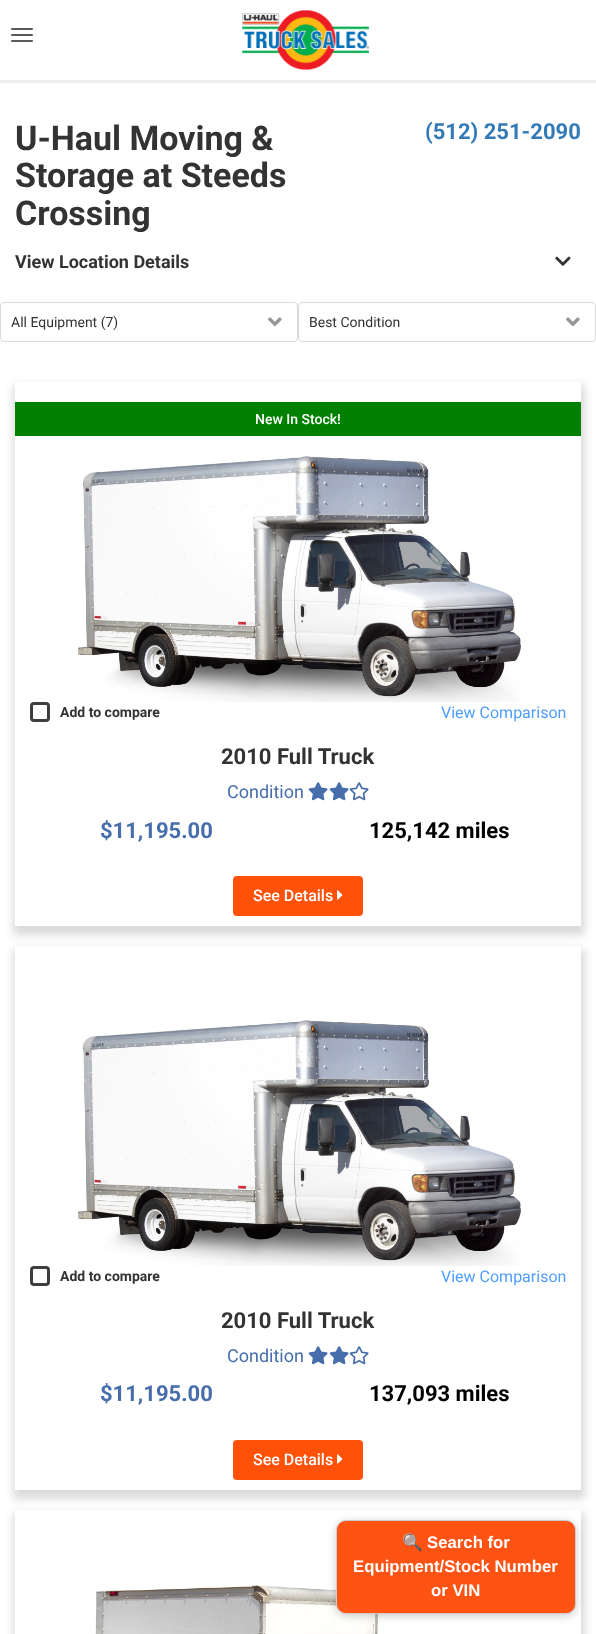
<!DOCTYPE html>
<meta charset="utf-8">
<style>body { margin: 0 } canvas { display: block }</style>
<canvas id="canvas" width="596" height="1634"></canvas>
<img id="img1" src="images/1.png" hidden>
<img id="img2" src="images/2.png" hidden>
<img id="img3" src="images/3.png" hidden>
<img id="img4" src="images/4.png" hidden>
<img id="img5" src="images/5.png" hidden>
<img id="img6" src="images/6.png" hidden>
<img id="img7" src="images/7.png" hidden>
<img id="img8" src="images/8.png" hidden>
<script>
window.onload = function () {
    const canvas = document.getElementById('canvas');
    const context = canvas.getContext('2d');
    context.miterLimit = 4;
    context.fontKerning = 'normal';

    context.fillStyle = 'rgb(255, 255, 255)';
    context.fillRect(0, 0, 596, 1634);
    context.fillStyle = 'rgb(90, 90, 90)';
    context.beginPath();
    context.roundRect(11, 28, 22, 2, 1);
    context.fill();
    context.beginPath();
    context.roundRect(11, 34, 22, 2, 1);
    context.fill();
    context.beginPath();
    context.roundRect(11, 40, 22, 2, 1);
    context.fill();
    context.drawImage(document.getElementById('img1'), 242, 10, 127, 60);
    context.fillStyle = 'rgb(238, 238, 238)';
    context.fillRect(0, 80, 596, 3);
    context.drawImage(document.getElementById('img2'), 555, 256, 16, 10);
    context.beginPath();
    context.roundRect(0.5, 302.5, 297, 39, 3.5);
    context.strokeStyle = 'rgb(218, 218, 218)';
    context.stroke();
    context.drawImage(document.getElementById('img3'), 268, 317, 14, 10);
    context.beginPath();
    context.roundRect(298.5, 302.5, 297, 39, 3.5);
    context.stroke();
    context.drawImage(document.getElementById('img3'), 566, 317, 14, 10);
    context.save();
    context.beginPath();
    context.moveTo(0, 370);
    context.lineTo(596, 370);
    context.lineTo(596, 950);
    context.lineTo(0, 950);
    context.closePath();
    context.moveTo(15, 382);
    context.lineTo(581, 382);
    context.lineTo(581, 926);
    context.lineTo(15, 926);
    context.closePath();
    context.clip('evenodd');
    context.fillStyle = 'rgb(218, 218, 218)';
    context.filter = 'blur(4.5px)';
    context.beginPath();
    context.rect(13, 385, 572, 550);
    context.fill();
    context.filter = 'none';
    context.restore();
    context.fillStyle = 'rgb(0, 128, 0)';
    context.fillRect(15, 402, 566, 34);
    context.drawImage(document.getElementById('img4'), 78, 456, 443, 246);
    context.beginPath();
    context.roundRect(31.5, 703.5, 17, 17, 2.5);
    context.strokeStyle = 'rgb(62, 62, 62)';
    context.lineWidth = 3;
    context.stroke();
    context.drawImage(document.getElementById('img5'), 308, 782, 20, 19);
    context.drawImage(document.getElementById('img5'), 329, 782, 20, 19);
    context.drawImage(document.getElementById('img6'), 349, 782, 20, 19);
    context.fillStyle = 'rgb(255, 81, 7)';
    context.beginPath();
    context.roundRect(233, 876, 130, 40, 4);
    context.fill();
    context.drawImage(document.getElementById('img7'), 337, 890, 6, 10);
    context.save();
    context.beginPath();
    context.moveTo(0, 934);
    context.lineTo(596, 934);
    context.lineTo(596, 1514);
    context.lineTo(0, 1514);
    context.closePath();
    context.moveTo(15, 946);
    context.lineTo(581, 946);
    context.lineTo(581, 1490);
    context.lineTo(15, 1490);
    context.closePath();
    context.clip('evenodd');
    context.fillStyle = 'rgb(218, 218, 218)';
    context.filter = 'blur(4.5px)';
    context.beginPath();
    context.rect(13, 949, 572, 550);
    context.fill();
    context.filter = 'none';
    context.restore();
    context.drawImage(document.getElementById('img4'), 78, 1020, 443, 246);
    context.beginPath();
    context.roundRect(31.5, 1267.5, 17, 17, 2.5);
    context.stroke();
    context.drawImage(document.getElementById('img5'), 308, 1346, 20, 19);
    context.drawImage(document.getElementById('img5'), 329, 1346, 20, 19);
    context.drawImage(document.getElementById('img6'), 349, 1346, 20, 19);
    context.beginPath();
    context.roundRect(233, 1440, 130, 40, 4);
    context.fill();
    context.drawImage(document.getElementById('img7'), 337, 1454, 6, 10);
    context.save();
    context.beginPath();
    context.moveTo(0, 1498);
    context.lineTo(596, 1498);
    context.lineTo(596, 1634);
    context.lineTo(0, 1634);
    context.closePath();
    context.moveTo(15, 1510);
    context.lineTo(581, 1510);
    context.lineTo(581, 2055);
    context.lineTo(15, 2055);
    context.closePath();
    context.clip('evenodd');
    context.fillStyle = 'rgb(218, 218, 218)';
    context.filter = 'blur(4.5px)';
    context.beginPath();
    context.rect(13, 1513, 572, 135);
    context.fill();
    context.filter = 'none';
    context.restore();
    context.drawImage(document.getElementById('img8'), 95, 1585, 284, 49);
    context.fillStyle = 'rgba(0, 0, 0, 0.2)';
    context.filter = 'blur(4px)';
    context.beginPath();
    context.roundRect(336, 1522, 240, 94, 10);
    context.fill();
    context.filter = 'none';
    context.fillStyle = 'rgb(255, 83, 20)';
    context.beginPath();
    context.roundRect(336.5, 1520.5, 239, 93, 9.5);
    context.fill();
    context.strokeStyle = 'rgb(204, 204, 204)';
    context.lineWidth = 1;
    context.stroke();
    context.font = 'bold 34px Roboto';
    context.fillStyle = 'rgb(51, 51, 51)';
    context.fillText('U-Haul Moving &', 15, 150);
    context.fillText('Storage at Steeds', 15, 187);
    context.fillText('Crossing', 15, 225);
    context.font = 'bold 22px Roboto';
    context.fillStyle = 'rgb(51, 122, 183)';
    context.fillText('(512) 251-2090', 425, 139);
    context.font = 'bold 18px Roboto';
    context.fillStyle = 'rgb(51, 51, 51)';
    context.fillText('View Location Details', 15, 268);
    context.font = '14px Roboto';
    context.fillText('All Equipment (7)', 11, 327);
    context.fillText('Best Condition', 309, 327);
    context.font = '500 14px Roboto';
    context.fillStyle = 'rgb(255, 255, 255)';
    context.fillText('New In Stock!', 255, 424);
    context.font = 'bold 14px Roboto';
    context.fillStyle = 'rgb(51, 51, 51)';
    context.fillText('Add to compare', 60, 717);
    context.font = '16px Roboto';
    context.fillStyle = 'rgb(78, 157, 254)';
    context.fillText('View Comparison', 441, 718);
    context.font = 'bold 22px Roboto';
    context.fillStyle = 'rgb(51, 51, 51)';
    context.fillText('2010 Full Truck', 221, 764);
    context.font = '18px Roboto';
    context.fillStyle = 'rgb(71, 110, 170)';
    context.fillText('Condition', 227, 798);
    context.font = 'bold 22px Roboto';
    context.fillText('$11,195.00', 100, 838);
    context.fillStyle = 'rgb(0, 0, 0)';
    context.fillText('125,142 miles', 369, 838);
    context.font = '500 16px Roboto';
    context.fillStyle = 'rgb(255, 255, 255)';
    context.fillText('See Details', 253, 901);
    context.font = 'bold 14px Roboto';
    context.fillStyle = 'rgb(51, 51, 51)';
    context.fillText('Add to compare', 60, 1281);
    context.font = '16px Roboto';
    context.fillStyle = 'rgb(78, 157, 254)';
    context.fillText('View Comparison', 441, 1282);
    context.font = 'bold 22px Roboto';
    context.fillStyle = 'rgb(51, 51, 51)';
    context.fillText('2010 Full Truck', 221, 1328);
    context.font = '18px Roboto';
    context.fillStyle = 'rgb(71, 110, 170)';
    context.fillText('Condition', 227, 1362);
    context.font = 'bold 22px Roboto';
    context.fillText('$11,195.00', 100, 1401);
    context.fillStyle = 'rgb(0, 0, 0)';
    context.fillText('137,093 miles', 369, 1401);
    context.font = '500 16px Roboto';
    context.fillStyle = 'rgb(255, 255, 255)';
    context.fillText('See Details', 253, 1465);
    context.font = 'bold 16.75px Noto Color Emoji';
    context.fillText('🔍', 402, 1548);
    context.font = 'bold 16.75px Liberation Sans';
    context.fillText('Search for', 427, 1548);
    context.fillText('Equipment/Stock Number', 353, 1572);
    context.fillText('or VIN', 431, 1596);
};
</script>
